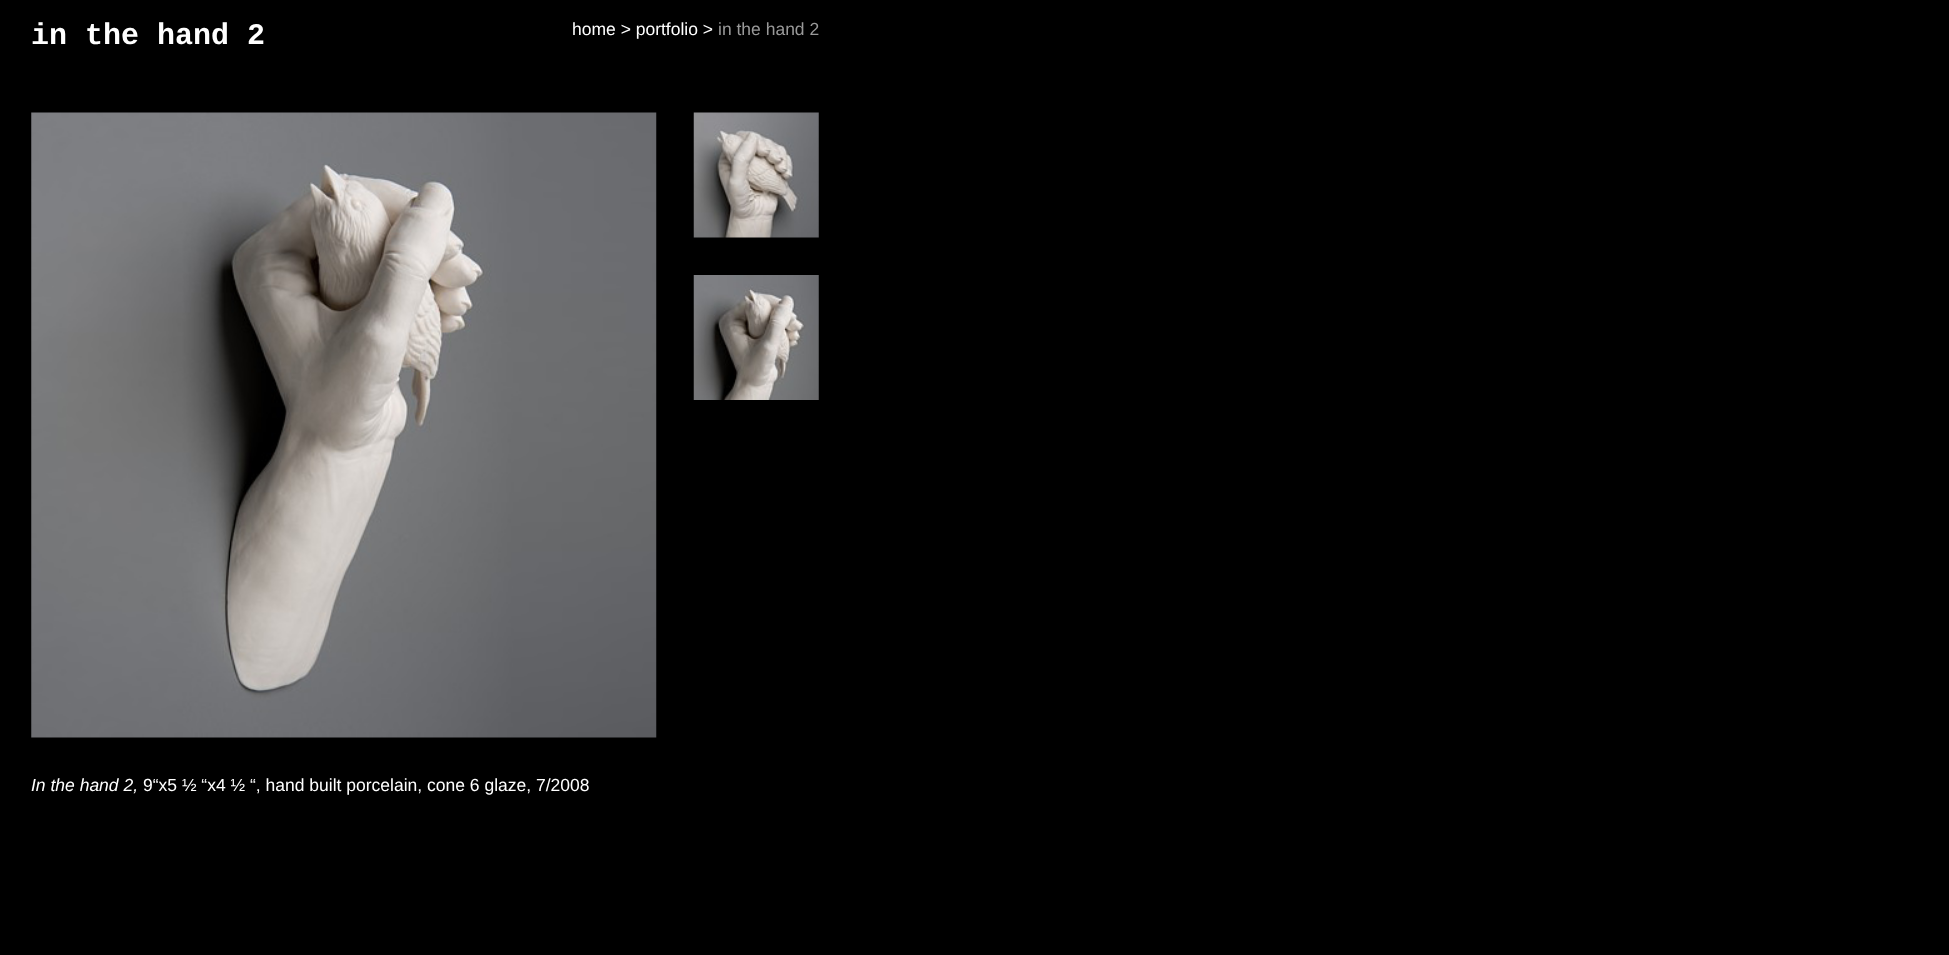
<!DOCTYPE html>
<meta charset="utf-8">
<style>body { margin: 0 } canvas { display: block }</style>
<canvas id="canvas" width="1949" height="955"></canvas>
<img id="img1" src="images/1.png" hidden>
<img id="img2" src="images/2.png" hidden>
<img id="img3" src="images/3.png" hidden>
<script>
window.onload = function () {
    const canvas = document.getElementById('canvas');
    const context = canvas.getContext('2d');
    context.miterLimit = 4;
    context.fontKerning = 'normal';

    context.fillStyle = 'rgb(0, 0, 0)';
    context.fillRect(0, 0, 1949, 955);
    context.drawImage(document.getElementById('img1'), 31, 112, 626, 626);
    context.drawImage(document.getElementById('img2'), 693, 112, 126, 126);
    context.drawImage(document.getElementById('img3'), 693, 275, 126, 125);
    context.font = 'bold 30px Liberation Mono';
    context.fillStyle = 'rgb(255, 255, 255)';
    context.fillText('in the hand 2', 31, 44);
    context.font = '17.5px Liberation Sans';
    context.fillText('home > portfolio >', 572, 35);
    context.fillStyle = 'rgb(153, 153, 153)';
    context.fillText('in the hand 2', 718, 35);
    context.font = 'italic 17.5px Liberation Sans';
    context.fillStyle = 'rgb(255, 255, 255)';
    context.fillText('In the hand 2,', 31, 791);
    context.font = '17.5px Liberation Sans';
    context.fillText('9“x5 ½ “x4 ½ “, hand built porcelain, cone 6 glaze, 7/2008', 143, 791);
};
</script>
